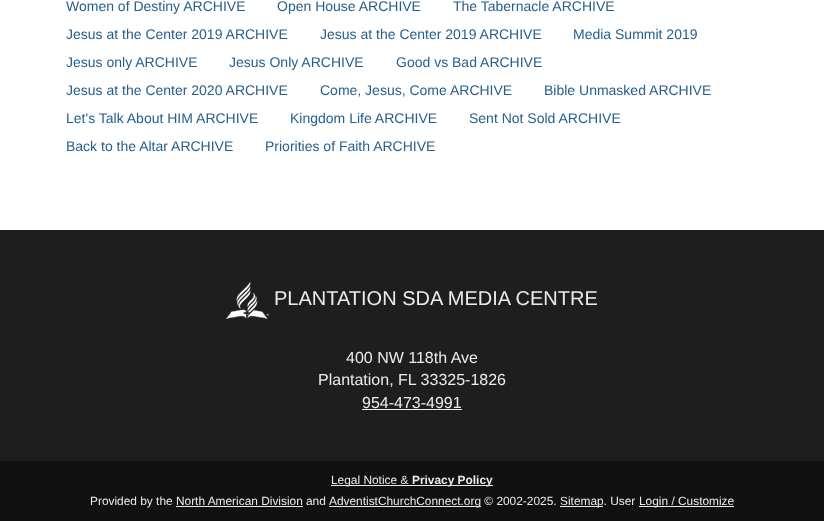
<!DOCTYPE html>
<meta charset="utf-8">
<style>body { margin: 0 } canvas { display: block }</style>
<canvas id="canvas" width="824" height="521"></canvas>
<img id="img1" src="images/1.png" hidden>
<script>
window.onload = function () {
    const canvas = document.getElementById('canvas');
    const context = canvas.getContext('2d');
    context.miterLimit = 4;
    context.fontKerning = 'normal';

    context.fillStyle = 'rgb(255, 255, 255)';
    context.fillRect(0, 0, 824, 521);
    context.fillStyle = 'rgb(30, 30, 30)';
    context.fillRect(0, 230, 824, 231);
    context.drawImage(document.getElementById('img1'), 226, 282, 43, 37);
    context.fillStyle = 'rgb(235, 235, 235)';
    context.fillRect(362, 409, 100, 1);
    context.fillStyle = 'rgb(17, 17, 17)';
    context.fillRect(0, 461, 824, 60);
    context.fillStyle = 'rgb(235, 235, 235)';
    context.fillRect(331, 485, 162, 1);
    context.fillRect(176, 506, 127, 1);
    context.fillRect(329, 506, 152, 1);
    context.fillRect(560, 506, 43, 1);
    context.fillRect(639, 506, 95, 1);
    context.font = '14px Liberation Sans';
    context.fillStyle = 'rgb(39, 94, 139)';
    context.fillText('Women of Destiny ARCHIVE', 66, 11);
    context.fillText('Open House ARCHIVE', 277, 11);
    context.fillText('The Tabernacle ARCHIVE', 453, 11);
    context.fillText('Jesus at the Center 2019 ARCHIVE', 66, 39);
    context.fillText('Jesus at the Center 2019 ARCHIVE', 320, 39);
    context.fillText('Media Summit 2019', 573, 39);
    context.fillText('Jesus only ARCHIVE', 66, 67);
    context.fillText('Jesus Only ARCHIVE', 229, 67);
    context.fillText('Good vs Bad ARCHIVE', 396, 67);
    context.fillText('Jesus at the Center 2020 ARCHIVE', 66, 95);
    context.fillText('Come, Jesus, Come ARCHIVE', 320, 95);
    context.fillText('Bible Unmasked ARCHIVE', 544, 95);
    context.fillText('Let\'s Talk About HIM ARCHIVE', 66, 123);
    context.fillText('Kingdom Life ARCHIVE', 290, 123);
    context.fillText('Sent Not Sold ARCHIVE', 469, 123);
    context.fillText('Back to the Altar ARCHIVE', 66, 151);
    context.fillText('Priorities of Faith ARCHIVE', 265, 151);
    context.font = '20px Liberation Sans';
    context.fillStyle = 'rgb(235, 235, 235)';
    context.fillText('PLANTATION SDA MEDIA CENTRE', 274, 305);
    context.font = '16px Liberation Sans';
    context.fillText('400 NW 118th Ave', 346, 363);
    context.fillText('Plantation, FL 33325-1826', 318, 385);
    context.fillText('954-473-4991', 362, 408);
    context.font = '11.9px Liberation Sans';
    context.fillText('Legal Notice &', 331, 484);
    context.font = 'bold 11.9px Liberation Sans';
    context.fillText('Privacy Policy', 412, 484);
    context.font = '11.9px Liberation Sans';
    context.fillText('Provided by the North American Division', 90, 505);
    context.fillText('and', 306, 505);
    context.fillText('AdventistChurchConnect.org © 2002-2025.', 329, 505);
    context.fillText('Sitemap. User', 560, 505);
    context.fillText('Login / Customize', 639, 505);
};
</script>
